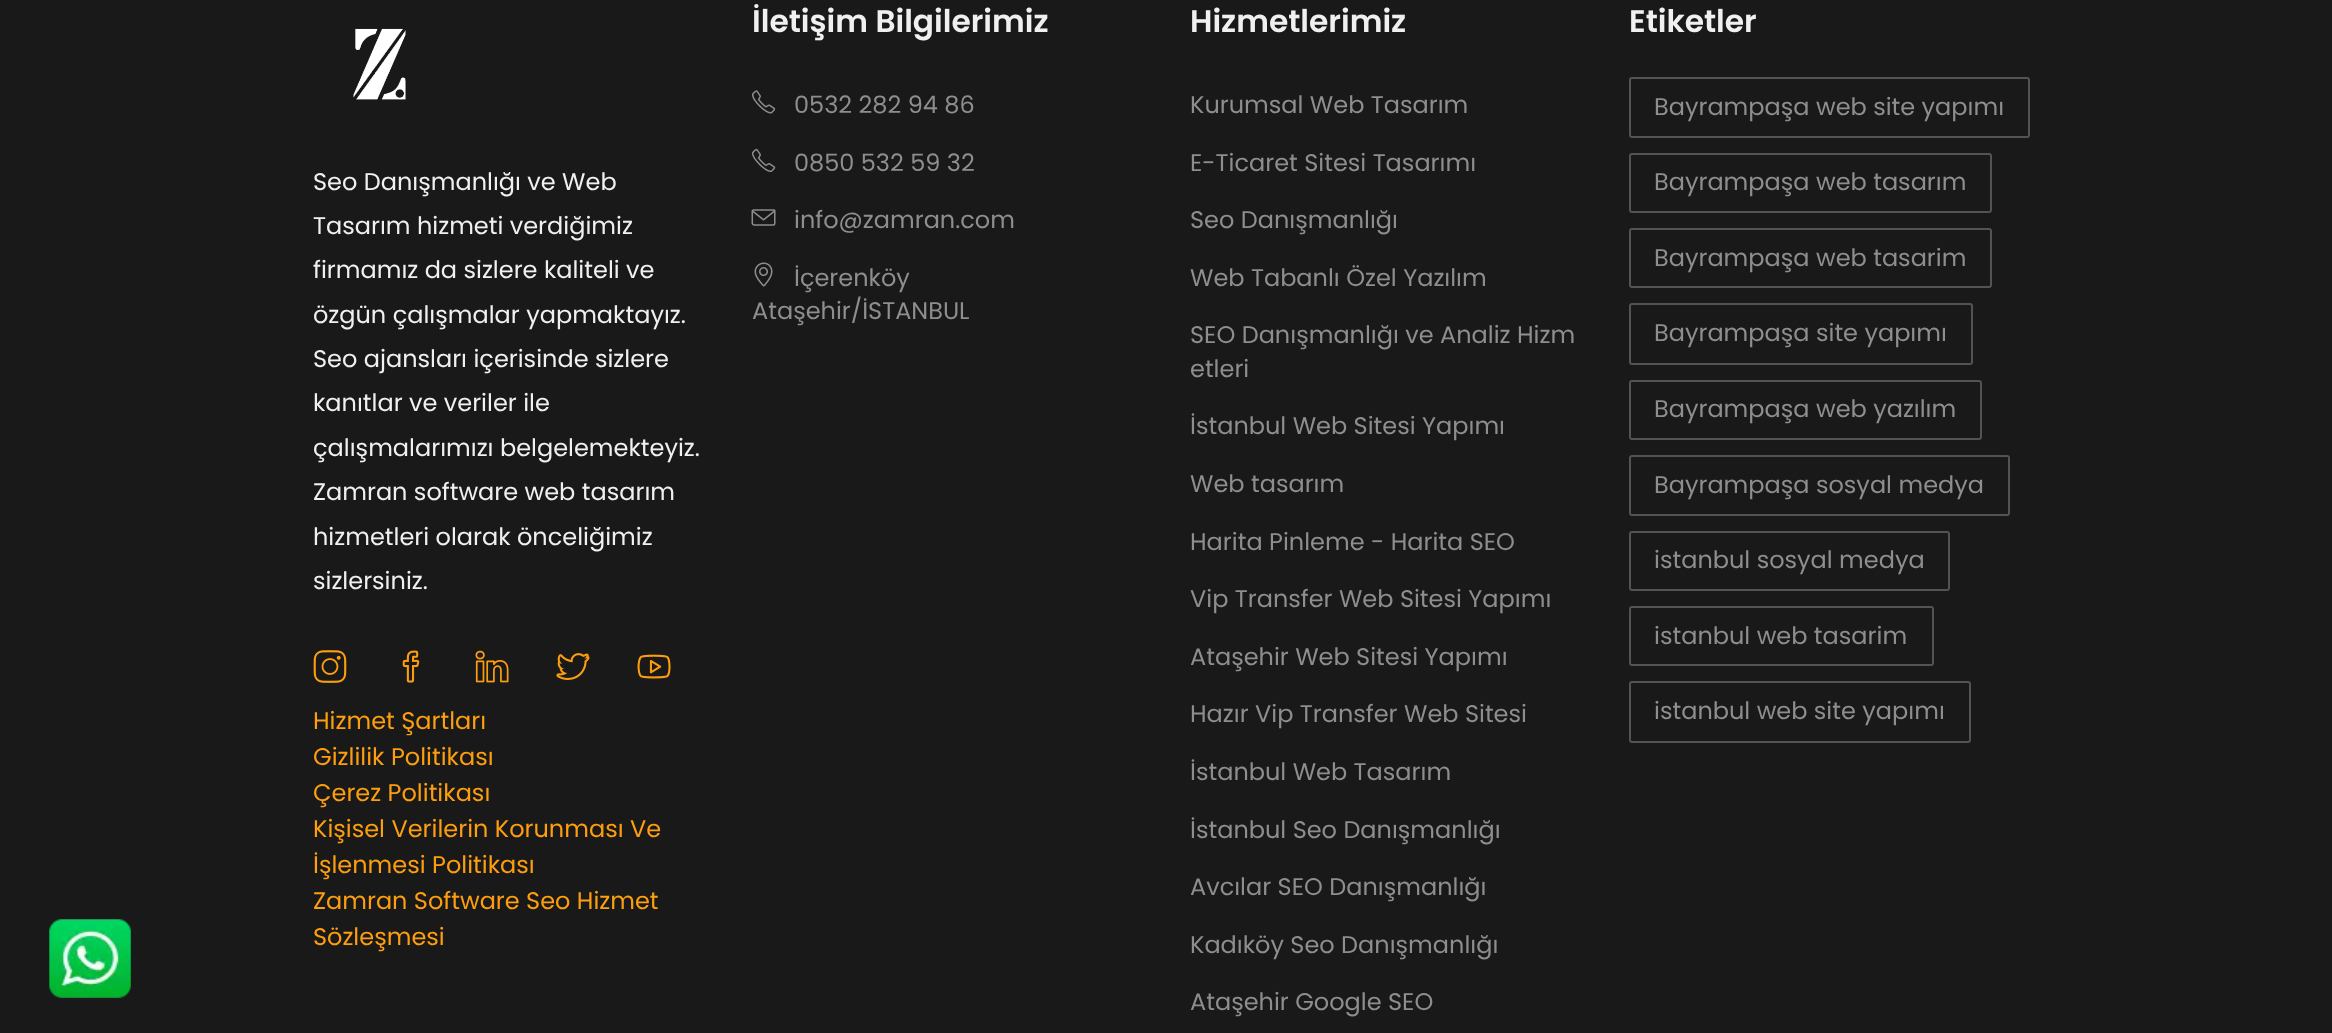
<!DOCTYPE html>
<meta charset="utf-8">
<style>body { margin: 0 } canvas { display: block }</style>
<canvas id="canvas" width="2332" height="1033"></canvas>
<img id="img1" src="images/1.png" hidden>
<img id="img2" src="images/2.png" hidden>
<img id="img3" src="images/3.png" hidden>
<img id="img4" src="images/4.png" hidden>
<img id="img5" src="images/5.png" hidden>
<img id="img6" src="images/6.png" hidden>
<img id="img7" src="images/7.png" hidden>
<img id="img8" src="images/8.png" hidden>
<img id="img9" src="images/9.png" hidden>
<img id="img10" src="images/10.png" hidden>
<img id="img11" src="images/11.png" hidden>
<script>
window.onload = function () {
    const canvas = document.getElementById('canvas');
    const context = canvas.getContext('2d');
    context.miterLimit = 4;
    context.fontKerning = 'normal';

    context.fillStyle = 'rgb(25, 25, 25)';
    context.fillRect(0, 0, 2332, 1033);
    context.drawImage(document.getElementById('img1'), 49, 919, 82, 80);
    context.drawImage(document.getElementById('img2'), 353, 28, 53, 72);
    context.drawImage(document.getElementById('img3'), 313, 650, 34, 33);
    context.drawImage(document.getElementById('img4'), 402, 650, 18, 33);
    context.drawImage(document.getElementById('img5'), 475, 650, 34, 33);
    context.drawImage(document.getElementById('img6'), 556, 653, 34, 27);
    context.drawImage(document.getElementById('img7'), 637, 654, 34, 25);
    context.drawImage(document.getElementById('img8'), 751, 90, 25, 24);
    context.drawImage(document.getElementById('img9'), 751, 148, 25, 24);
    context.drawImage(document.getElementById('img10'), 751, 209, 25, 17);
    context.drawImage(document.getElementById('img11'), 754, 262, 19, 25);
    context.beginPath();
    context.roundRect(1630, 78, 399, 59, 2);
    context.strokeStyle = 'rgb(83, 83, 83)';
    context.lineWidth = 2;
    context.stroke();
    context.beginPath();
    context.roundRect(1630, 154, 361, 58, 2);
    context.stroke();
    context.beginPath();
    context.roundRect(1630, 229, 361, 58, 2);
    context.stroke();
    context.beginPath();
    context.roundRect(1630, 304, 342, 60, 2);
    context.stroke();
    context.beginPath();
    context.roundRect(1630, 381, 351, 58, 2);
    context.stroke();
    context.beginPath();
    context.roundRect(1630, 456, 379, 59, 2);
    context.stroke();
    context.beginPath();
    context.roundRect(1630, 532, 319, 58, 2);
    context.stroke();
    context.beginPath();
    context.roundRect(1630, 607, 303, 58, 2);
    context.stroke();
    context.beginPath();
    context.roundRect(1630, 682, 340, 60, 2);
    context.stroke();
    context.font = '24px Poppins';
    context.fillStyle = 'rgb(240, 240, 240)';
    context.fillText('Seo Danışmanlığı ve Web', 313, 190);
    context.fillText('Tasarım hizmeti verdiğimiz', 313, 234);
    context.fillText('firmamız da sizlere kaliteli ve', 313, 278);
    context.fillText('özgün çalışmalar yapmaktayız.', 313, 323);
    context.fillText('Seo ajansları içerisinde sizlere', 313, 367);
    context.fillText('kanıtlar ve veriler ile', 313, 411);
    context.fillText('çalışmalarımızı belgelemekteyiz.', 313, 456);
    context.fillText('Zamran software web tasarım', 313, 500);
    context.fillText('hizmetleri olarak önceliğimiz', 313, 545);
    context.fillText('sizlersiniz.', 313, 589);
    context.fillStyle = 'rgb(253, 158, 14)';
    context.fillText('Hizmet Şartları', 313, 729);
    context.fillText('Gizlilik Politikası', 313, 765);
    context.fillText('Çerez Politikası', 313, 801);
    context.fillText('Kişisel Verilerin Korunması Ve', 313, 837);
    context.fillText('İşlenmesi Politikası', 313, 873);
    context.fillText('Zamran Software Seo Hizmet', 313, 909);
    context.fillText('Sözleşmesi', 313, 945);
    context.font = '600 31.25px Poppins';
    context.fillStyle = 'rgb(240, 240, 240)';
    context.fillText('İletişim Bilgilerimiz', 752, 32);
    context.font = '24px Poppins';
    context.fillStyle = 'rgb(142, 142, 142)';
    context.fillText('0532 282 94 86', 794, 113);
    context.fillText('0850 532 59 32', 794, 171);
    context.fillText('info@zamran.com', 794, 228);
    context.fillText('İçerenköy', 794, 286);
    context.fillText('Ataşehir/İSTANBUL', 752, 319);
    context.font = '600 31.25px Poppins';
    context.fillStyle = 'rgb(240, 240, 240)';
    context.fillText('Hizmetlerimiz', 1190, 32);
    context.font = '24px Poppins';
    context.fillStyle = 'rgb(142, 142, 142)';
    context.fillText('Kurumsal Web Tasarım', 1190, 113);
    context.fillText('E-Ticaret Sitesi Tasarımı', 1190, 171);
    context.fillText('Seo Danışmanlığı', 1190, 228);
    context.fillText('Web Tabanlı Özel Yazılım', 1190, 286);
    context.fillText('SEO Danışmanlığı ve Analiz Hizm', 1190, 343);
    context.fillText('etleri', 1190, 377);
    context.fillText('İstanbul Web Sitesi Yapımı', 1190, 434);
    context.fillText('Web tasarım', 1190, 492);
    context.fillText('Harita Pinleme - Harita SEO', 1190, 550);
    context.fillText('Vip Transfer Web Sitesi Yapımı', 1190, 607);
    context.fillText('Ataşehir Web Sitesi Yapımı', 1190, 665);
    context.fillText('Hazır Vip Transfer Web Sitesi', 1190, 722);
    context.fillText('İstanbul Web Tasarım', 1190, 780);
    context.fillText('İstanbul Seo Danışmanlığı', 1190, 838);
    context.fillText('Avcılar SEO Danışmanlığı', 1190, 895);
    context.fillText('Kadıköy Seo Danışmanlığı', 1190, 953);
    context.fillText('Ataşehir Google SEO', 1190, 1010);
    context.font = '600 31.25px Poppins';
    context.fillStyle = 'rgb(240, 240, 240)';
    context.fillText('Etiketler', 1629, 32);
    context.font = '24px Poppins';
    context.fillStyle = 'rgb(142, 142, 142)';
    context.fillText('Bayrampaşa web site yapımı', 1654, 115);
    context.fillText('Bayrampaşa web tasarım', 1654, 190);
    context.fillText('Bayrampaşa web tasarim', 1654, 266);
    context.fillText('Bayrampaşa site yapımı', 1654, 341);
    context.fillText('Bayrampaşa web yazılım', 1654, 417);
    context.fillText('Bayrampaşa sosyal medya', 1654, 493);
    context.fillText('istanbul sosyal medya', 1654, 568);
    context.fillText('istanbul web tasarim', 1654, 644);
    context.fillText('istanbul web site yapımı', 1654, 719);
};
</script>
